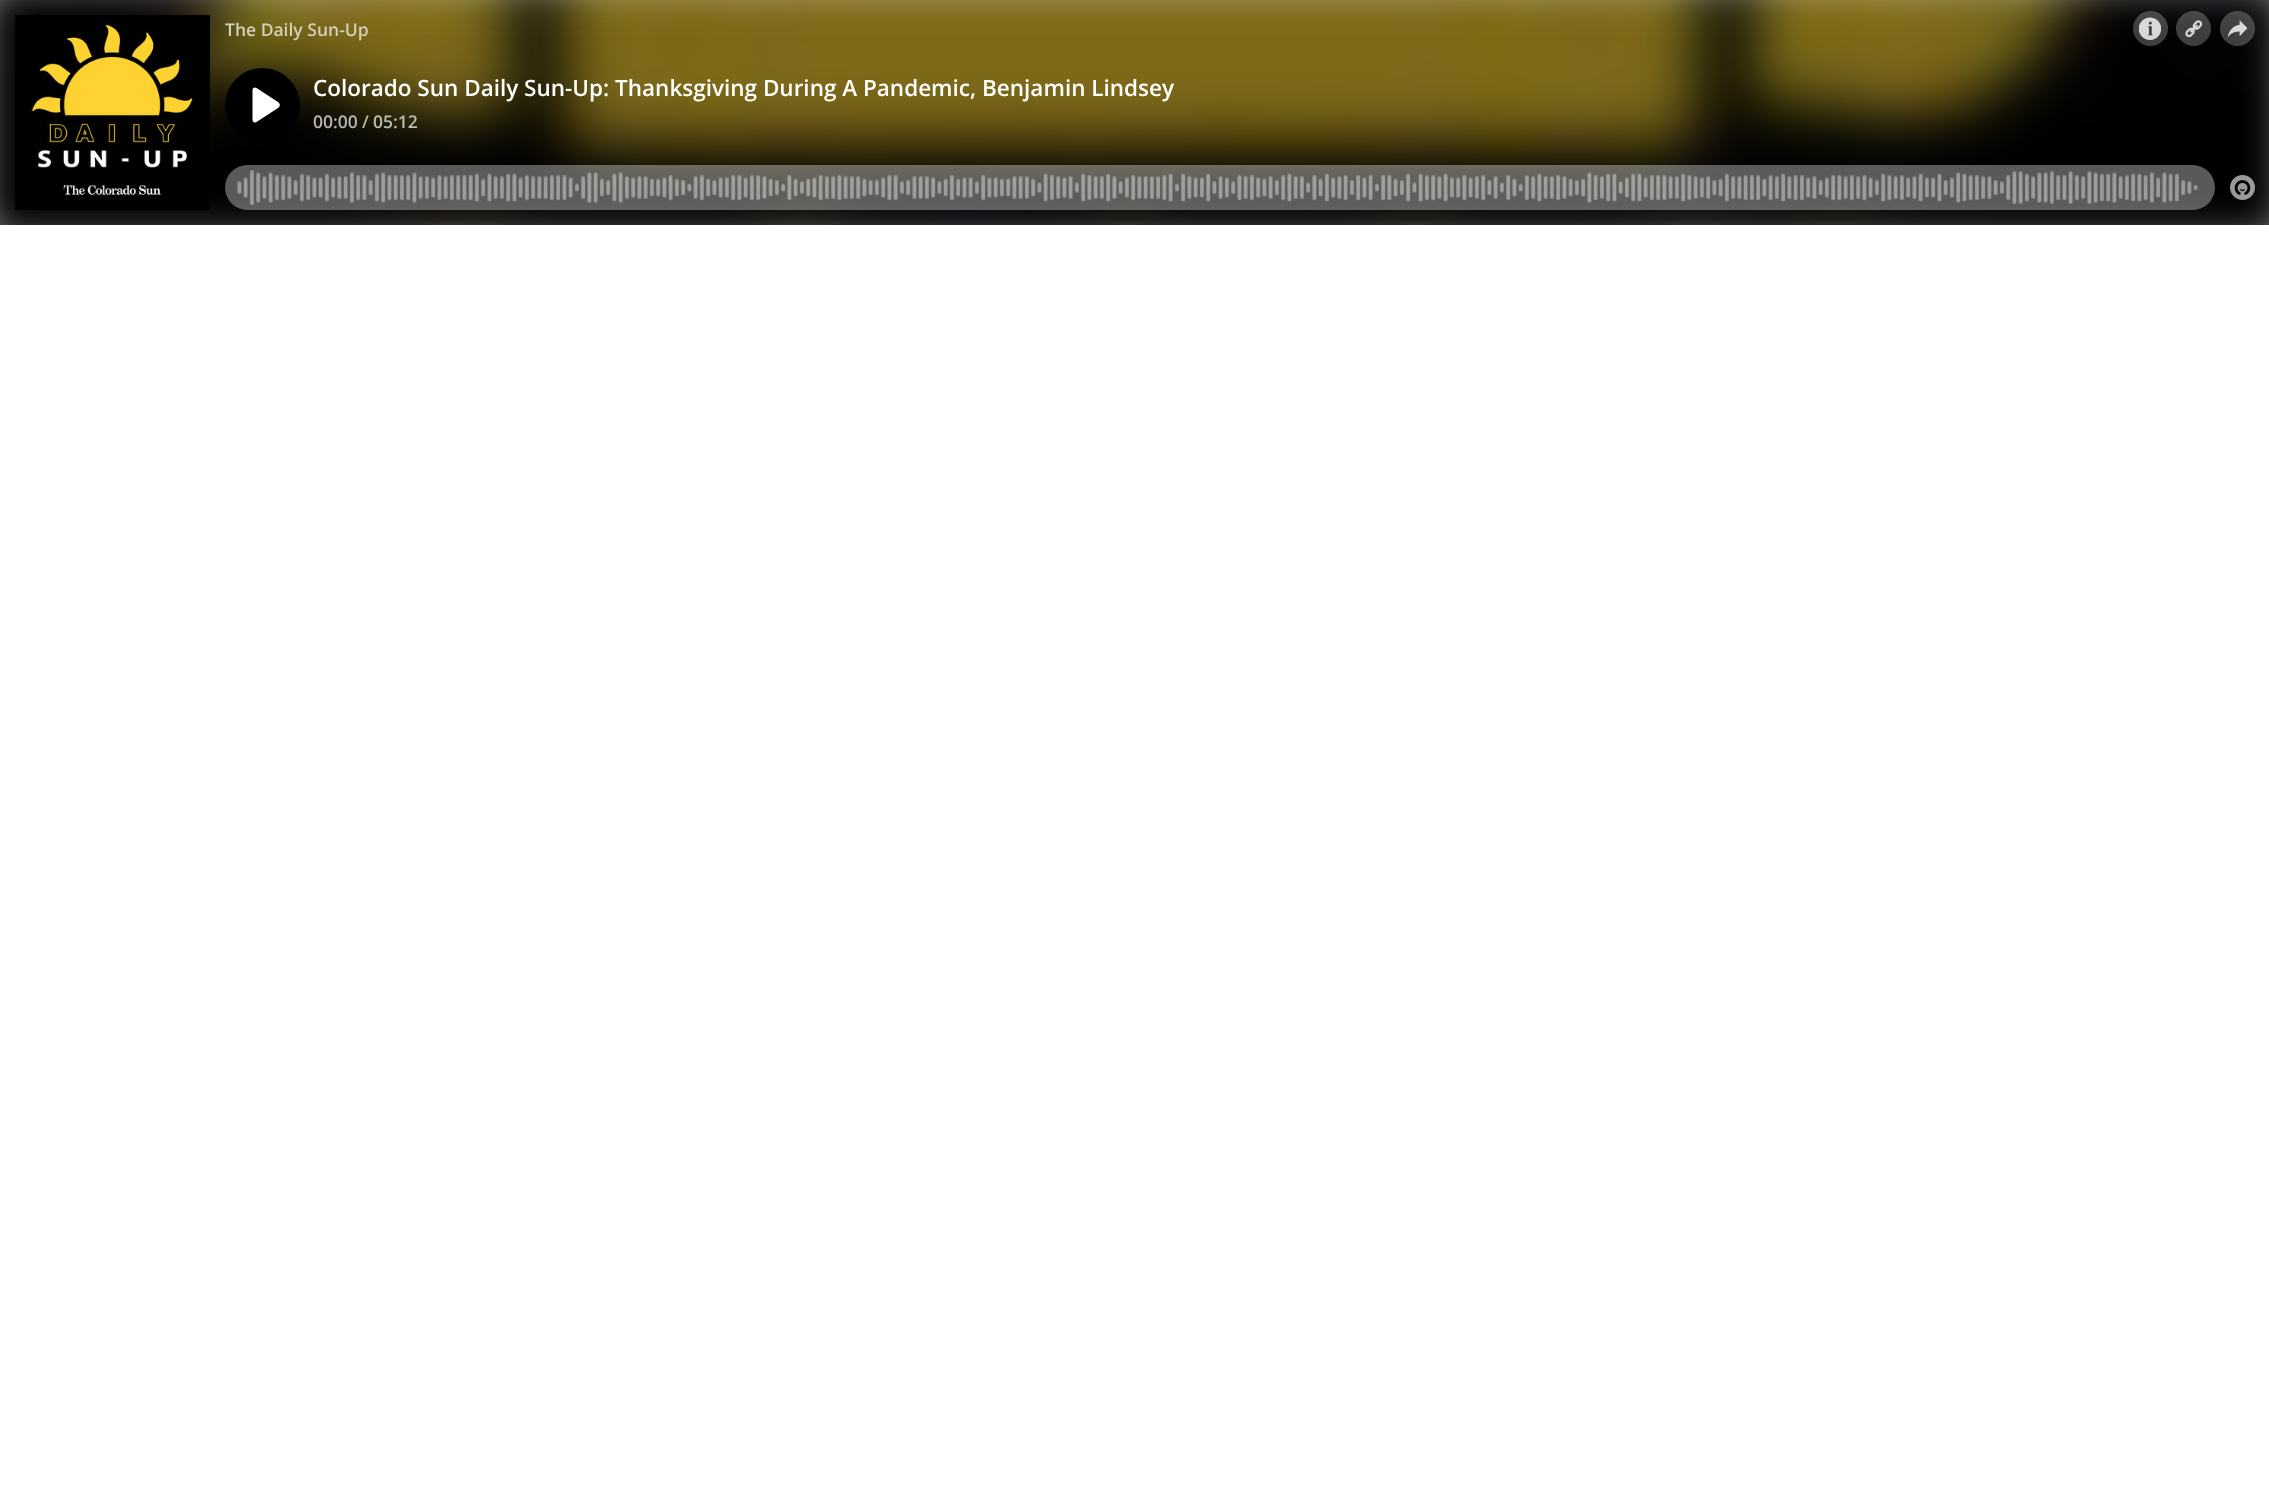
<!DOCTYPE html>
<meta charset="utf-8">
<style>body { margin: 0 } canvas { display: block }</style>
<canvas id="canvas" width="2269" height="1511"></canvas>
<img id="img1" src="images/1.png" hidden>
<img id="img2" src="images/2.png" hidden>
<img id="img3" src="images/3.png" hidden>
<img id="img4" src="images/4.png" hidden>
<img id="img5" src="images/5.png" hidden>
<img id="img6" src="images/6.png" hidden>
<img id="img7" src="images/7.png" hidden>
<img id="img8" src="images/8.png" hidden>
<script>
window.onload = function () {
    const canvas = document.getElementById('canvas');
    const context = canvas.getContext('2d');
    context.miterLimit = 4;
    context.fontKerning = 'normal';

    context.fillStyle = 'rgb(255, 255, 255)';
    context.fillRect(0, 0, 2269, 1511);
    context.drawImage(document.getElementById('img1'), 0, 0, 2269, 225);
    context.drawImage(document.getElementById('img2'), 15, 15, 195, 195);
    context.fillStyle = 'rgba(255, 255, 255, 0.24)';
    context.beginPath();
    context.arc(2150.5, 28.5, 17.5, 0, 2 * Math.PI);
    context.fill();
    context.drawImage(document.getElementById('img3'), 2139, 17, 22, 23);
    context.beginPath();
    context.arc(2193.5, 28.5, 17.5, 0, 2 * Math.PI);
    context.fill();
    context.drawImage(document.getElementById('img4'), 2185, 20, 18, 18);
    context.beginPath();
    context.arc(2237.5, 28.5, 17.5, 0, 2 * Math.PI);
    context.fill();
    context.drawImage(document.getElementById('img5'), 2227, 20, 21, 18);
    context.fillStyle = 'rgb(0, 0, 0)';
    context.beginPath();
    context.arc(262.5, 105.5, 37.5, 0, 2 * Math.PI);
    context.fill();
    context.fillStyle = 'rgb(255, 255, 255)';
    context.beginPath();
    context.moveTo(256.5, 122);
    context.bezierCurveTo(254.5, 123.5, 252.5, 122, 252.5, 119.5);
    context.lineTo(252.5, 90.5);
    context.bezierCurveTo(252.5, 88, 254.5, 86.5, 256.5, 88);
    context.lineTo(278, 102);
    context.bezierCurveTo(280.5, 104, 280.5, 106, 278, 108);
    context.closePath();
    context.fill();
    context.fillStyle = 'rgba(255, 255, 255, 0.35)';
    context.beginPath();
    context.roundRect(225, 165, 1990, 45, 22.5);
    context.fill();
    context.drawImage(document.getElementById('img6'), 237, 170, 1274, 35);
    context.drawImage(document.getElementById('img7'), 1512, 171, 686, 33);
    context.drawImage(document.getElementById('img8'), 2230, 175, 25, 25);
    context.font = '600 17.5px Open Sans';
    context.fillStyle = 'rgb(212, 207, 185)';
    context.fillText('The Daily Sun-Up', 225, 36);
    context.font = '600 22.5px Open Sans';
    context.fillStyle = 'rgb(255, 255, 255)';
    context.fillText('Colorado Sun Daily Sun-Up: Thanksgiving During A Pandemic, Benjamin Lindsey', 313, 96);
    context.font = '600 17.5px Open Sans';
    context.fillStyle = 'rgb(183, 182, 180)';
    context.fillText('00:00', 313, 128);
    context.fillText('/', 362, 128);
    context.fillStyle = 'rgb(189, 187, 181)';
    context.fillText('05:12', 373, 128);
};
</script>
